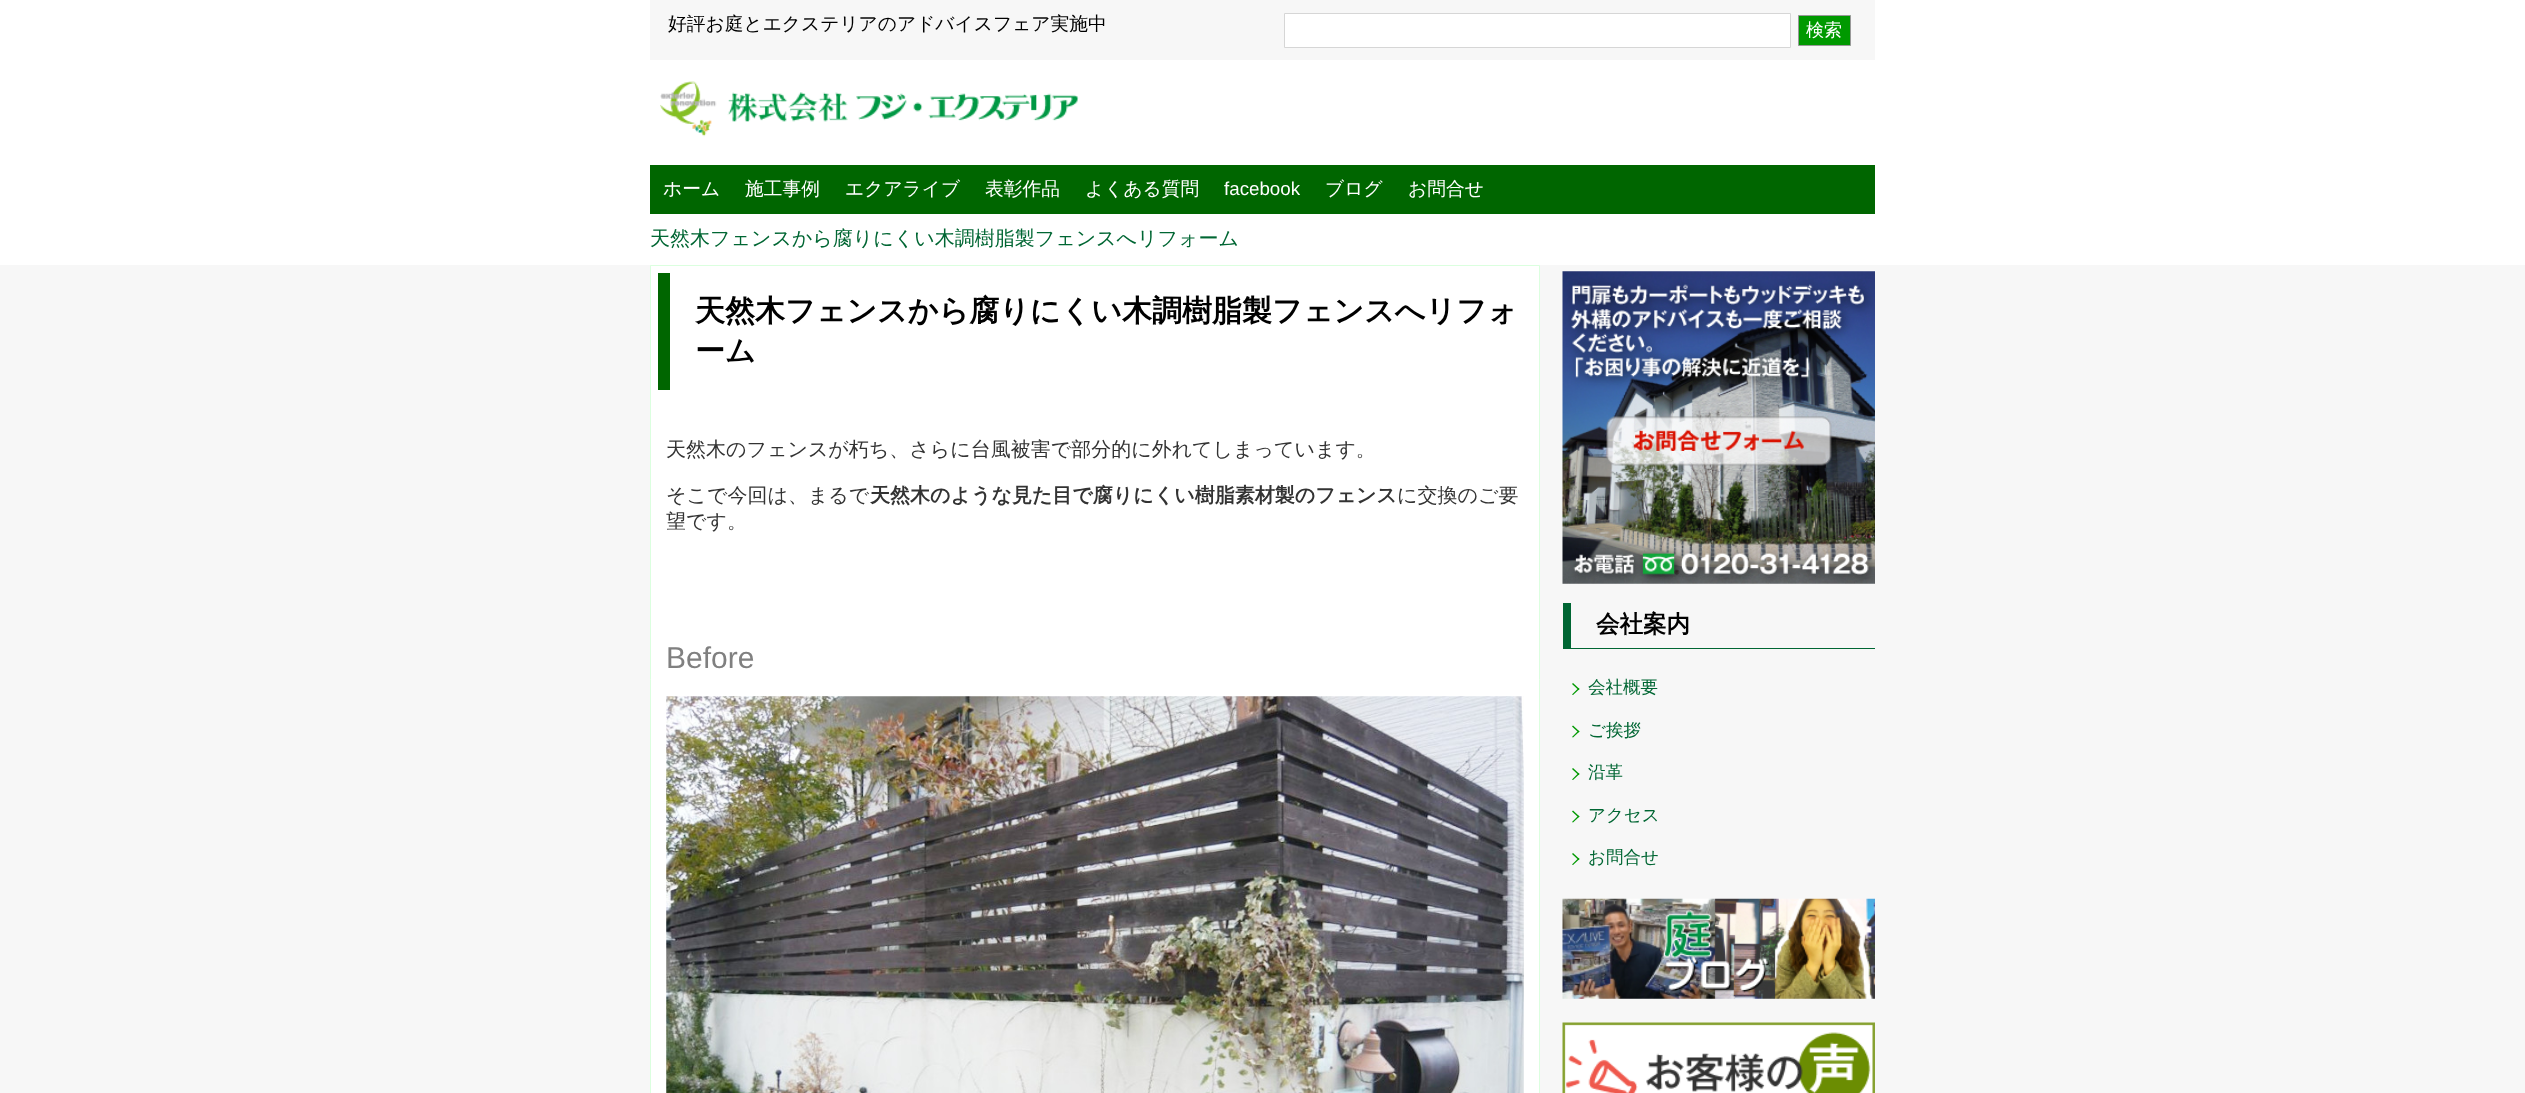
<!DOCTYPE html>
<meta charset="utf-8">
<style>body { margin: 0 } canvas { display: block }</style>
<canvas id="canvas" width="2525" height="1093"></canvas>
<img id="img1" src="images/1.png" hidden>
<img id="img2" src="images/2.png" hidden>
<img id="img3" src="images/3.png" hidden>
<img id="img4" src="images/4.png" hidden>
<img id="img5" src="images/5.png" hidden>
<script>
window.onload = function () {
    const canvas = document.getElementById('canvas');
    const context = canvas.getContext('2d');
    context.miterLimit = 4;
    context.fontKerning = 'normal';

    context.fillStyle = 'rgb(255, 255, 255)';
    context.fillRect(0, 0, 2525, 1093);
    context.fillStyle = 'rgb(247, 247, 247)';
    context.fillRect(650, 0, 1225, 60);
    context.fillStyle = 'rgb(255, 255, 255)';
    context.beginPath();
    context.rect(1284.5, 13.5, 506, 34);
    context.fill();
    context.strokeStyle = 'rgb(214, 214, 214)';
    context.stroke();
    context.fillStyle = 'rgb(0, 153, 0)';
    context.beginPath();
    context.rect(1798.5, 15.5, 52, 30);
    context.fill();
    context.strokeStyle = 'rgb(153, 153, 153)';
    context.stroke();
    context.drawImage(document.getElementById('img1'), 660, 81, 419, 56);
    context.fillStyle = 'rgb(0, 102, 0)';
    context.fillRect(650, 165, 1225, 49);
    context.fillStyle = 'rgb(247, 247, 247)';
    context.fillRect(0, 265, 2525, 828);
    context.fillStyle = 'rgb(255, 255, 255)';
    context.beginPath();
    context.rect(650.5, 265.5, 889, 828);
    context.fill();
    context.strokeStyle = 'rgb(219, 255, 223)';
    context.stroke();
    context.fillStyle = 'rgb(0, 102, 0)';
    context.fillRect(658, 273, 12, 117);
    context.drawImage(document.getElementById('img2'), 666, 696, 858, 397);
    context.drawImage(document.getElementById('img3'), 1562, 271, 313, 313);
    context.fillStyle = 'rgb(0, 102, 51)';
    context.fillRect(1563, 648, 312, 1);
    context.fillRect(1563, 603, 8, 46);
    context.fillStyle = 'rgb(0, 153, 0)';
    context.beginPath();
    context.moveTo(1572, 684);
    context.lineTo(1573, 683);
    context.lineTo(1579.5, 689);
    context.lineTo(1578.5, 690);
    context.closePath();
    context.fill();
    context.beginPath();
    context.moveTo(1572, 694.5);
    context.lineTo(1578.5, 688);
    context.lineTo(1579.5, 689);
    context.lineTo(1573, 695);
    context.closePath();
    context.fill();
    context.beginPath();
    context.moveTo(1572, 726.5);
    context.lineTo(1573, 725.5);
    context.lineTo(1579.5, 731.5);
    context.lineTo(1578.5, 732.5);
    context.closePath();
    context.fill();
    context.beginPath();
    context.moveTo(1572, 737);
    context.lineTo(1578.5, 730.5);
    context.lineTo(1579.5, 731.5);
    context.lineTo(1573, 737.5);
    context.closePath();
    context.fill();
    context.beginPath();
    context.moveTo(1572, 769);
    context.lineTo(1573, 768);
    context.lineTo(1579.5, 774);
    context.lineTo(1578.5, 775);
    context.closePath();
    context.fill();
    context.beginPath();
    context.moveTo(1572, 779.5);
    context.lineTo(1578.5, 773);
    context.lineTo(1579.5, 774);
    context.lineTo(1573, 780);
    context.closePath();
    context.fill();
    context.beginPath();
    context.moveTo(1572, 811.5);
    context.lineTo(1573, 810.5);
    context.lineTo(1579.5, 816.5);
    context.lineTo(1578.5, 817.5);
    context.closePath();
    context.fill();
    context.beginPath();
    context.moveTo(1572, 822);
    context.lineTo(1578.5, 815.5);
    context.lineTo(1579.5, 816.5);
    context.lineTo(1573, 822.5);
    context.closePath();
    context.fill();
    context.beginPath();
    context.moveTo(1572, 854);
    context.lineTo(1573, 853);
    context.lineTo(1579.5, 859);
    context.lineTo(1578.5, 860);
    context.closePath();
    context.fill();
    context.beginPath();
    context.moveTo(1572, 864.5);
    context.lineTo(1578.5, 858);
    context.lineTo(1579.5, 859);
    context.lineTo(1573, 865);
    context.closePath();
    context.fill();
    context.drawImage(document.getElementById('img4'), 1562, 898, 313, 101);
    context.drawImage(document.getElementById('img5'), 1562, 1022, 313, 71);
    context.font = '500 18.75px WenQuanYi Zen Hei';
    context.fillStyle = 'rgb(0, 0, 0)';
    context.fillText('好評お庭とエクステリアのアドバイスフェア実施中', 668, 30);
    context.font = '500 18px WenQuanYi Zen Hei';
    context.fillStyle = 'rgb(255, 255, 255)';
    context.fillText('検索', 1806, 36);
    context.font = '500 18.75px WenQuanYi Zen Hei';
    context.fillText('ホーム', 663, 195);
    context.fillText('施工事例', 745, 195);
    context.fillText('エクアライブ', 845, 195);
    context.fillText('表彰作品', 985, 195);
    context.fillText('よくある質問', 1085, 195);
    context.font = '18.75px Liberation Sans';
    context.fillText('facebook', 1224, 195);
    context.font = '500 18.75px WenQuanYi Zen Hei';
    context.fillText('ブログ', 1325, 195);
    context.fillText('お問合せ', 1408, 195);
    context.font = '500 20px WenQuanYi Zen Hei';
    context.fillStyle = 'rgb(0, 102, 51)';
    context.fillText('天然木フェンスから腐りにくい木調樹脂製フェンスへリフォーム', 650, 245);
    context.font = 'bold 30px WenQuanYi Zen Hei';
    context.fillStyle = 'rgb(0, 0, 0)';
    context.fillText('天然木フェンスから腐りにくい木調樹脂製フェンスへリフォ', 695, 321);
    context.fillText('ーム', 695, 361);
    context.font = '500 20px WenQuanYi Zen Hei';
    context.fillStyle = 'rgb(51, 51, 51)';
    context.fillText('天然木のフェンスが朽ち、さらに台風被害で部分的に外れてしまっています。', 666, 456);
    context.fillText('そこで今回は、まるで', 666, 502);
    context.font = 'bold 20px WenQuanYi Zen Hei';
    context.fillText('天然木のような見た目で腐りにくい樹脂素材製のフェンス', 870, 502);
    context.font = '500 20px WenQuanYi Zen Hei';
    context.fillText('に交換のご要', 1397, 502);
    context.fillText('望です。', 666, 528);
    context.font = '30px Liberation Sans';
    context.fillStyle = 'rgb(128, 128, 128)';
    context.fillText('Before', 666, 668);
    context.font = 'bold 23.5px WenQuanYi Zen Hei';
    context.fillStyle = 'rgb(0, 0, 0)';
    context.fillText('会社案内', 1596, 632);
    context.font = '500 17.5px WenQuanYi Zen Hei';
    context.fillStyle = 'rgb(0, 102, 51)';
    context.fillText('会社概要', 1588, 693);
    context.fillText('ご挨拶', 1588, 736);
    context.fillText('沿革', 1588, 778);
    context.fillText('アクセス', 1588, 821);
    context.fillText('お問合せ', 1588, 863);
};
</script>
